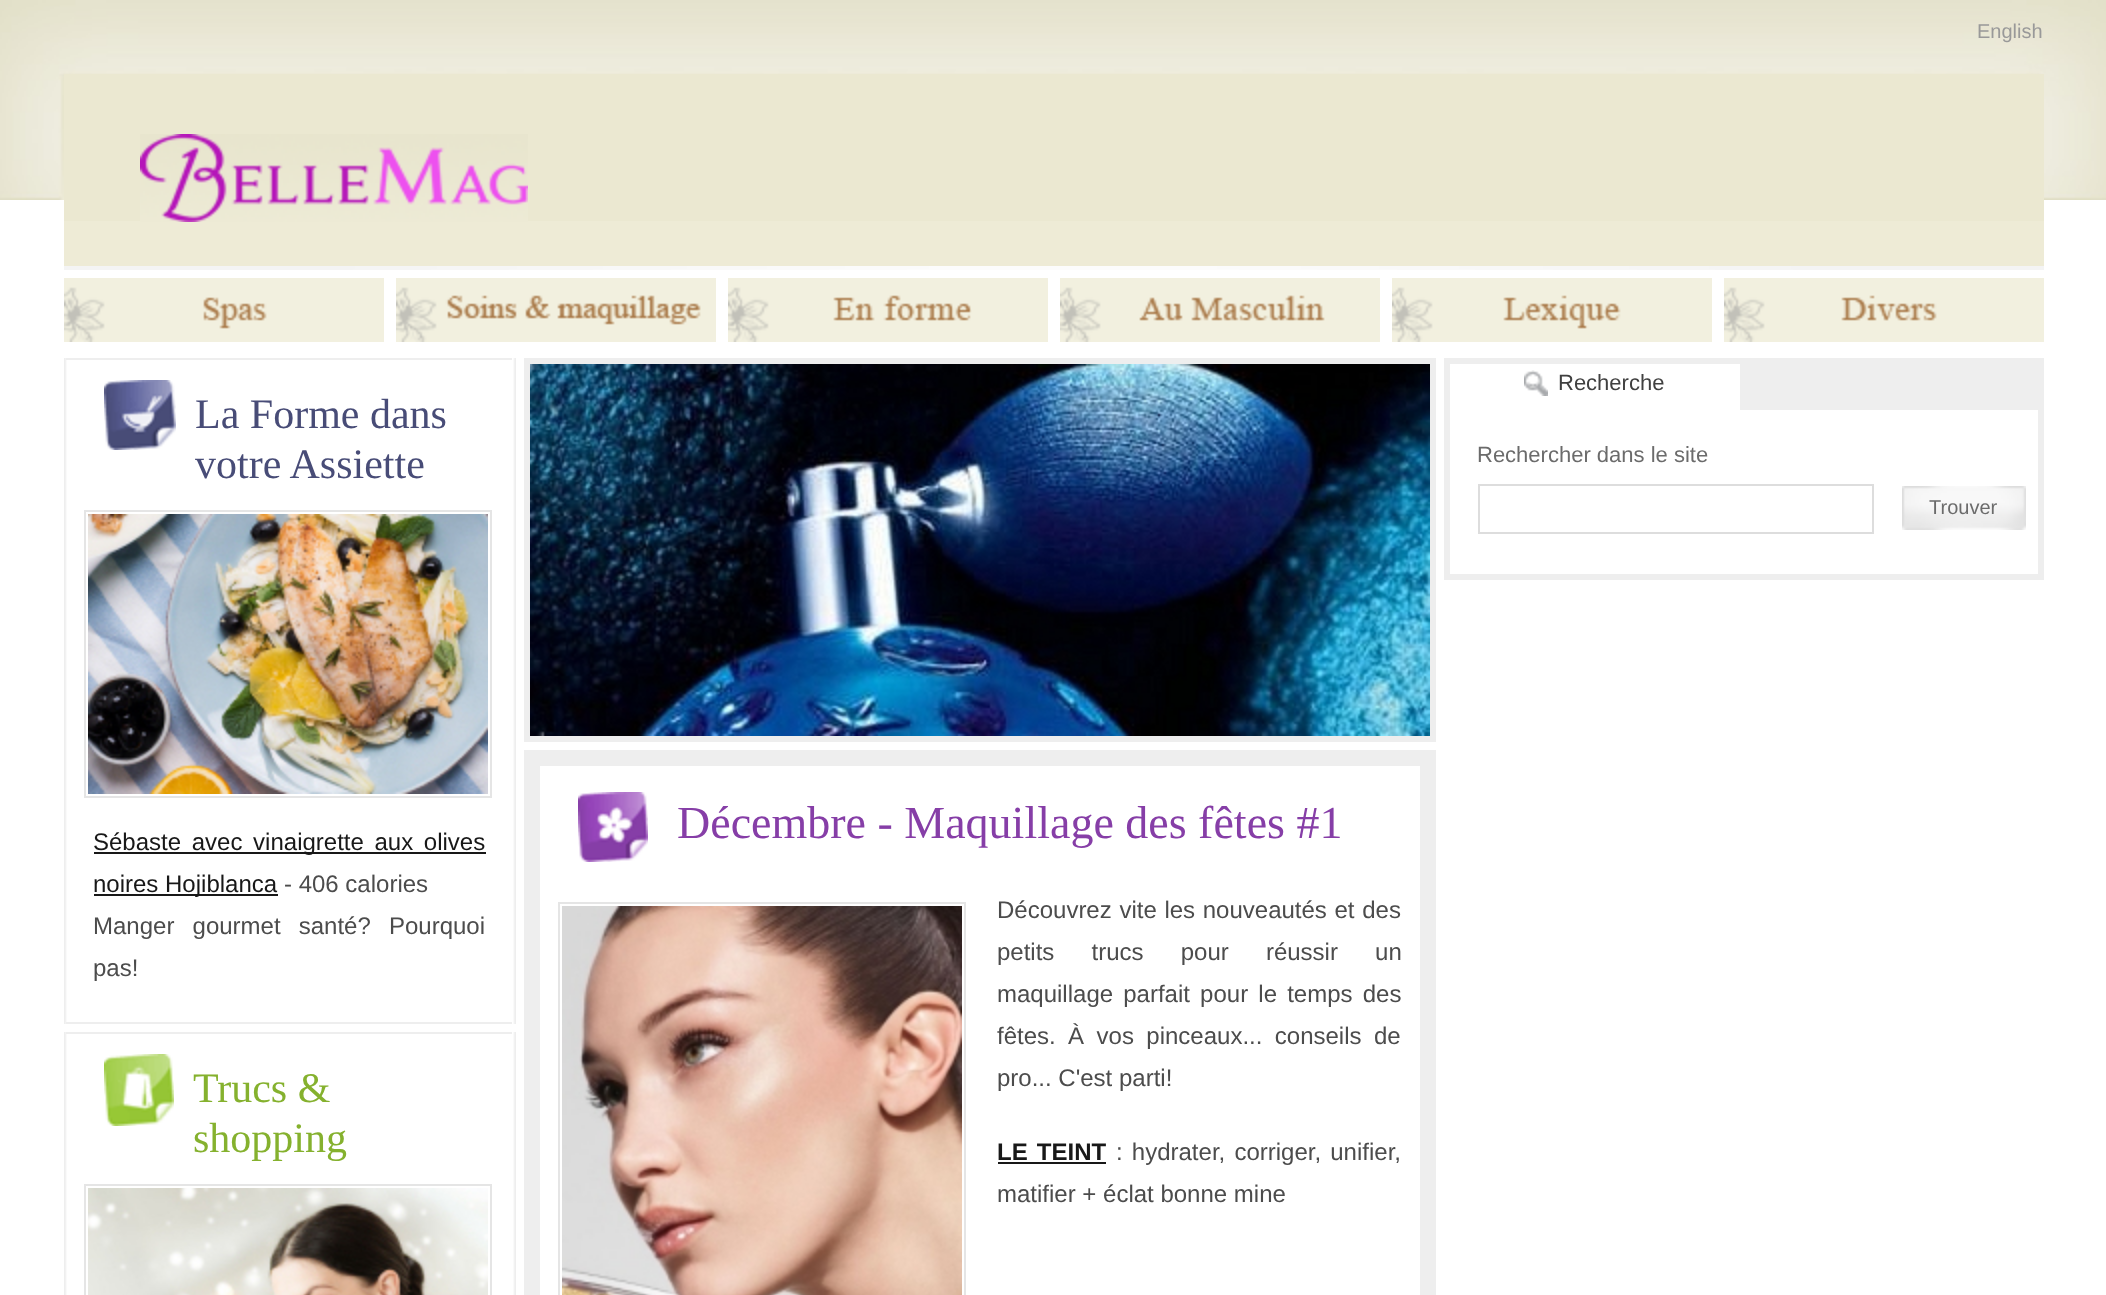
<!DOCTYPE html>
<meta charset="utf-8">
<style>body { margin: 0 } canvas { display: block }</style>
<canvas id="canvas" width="2106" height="1295"></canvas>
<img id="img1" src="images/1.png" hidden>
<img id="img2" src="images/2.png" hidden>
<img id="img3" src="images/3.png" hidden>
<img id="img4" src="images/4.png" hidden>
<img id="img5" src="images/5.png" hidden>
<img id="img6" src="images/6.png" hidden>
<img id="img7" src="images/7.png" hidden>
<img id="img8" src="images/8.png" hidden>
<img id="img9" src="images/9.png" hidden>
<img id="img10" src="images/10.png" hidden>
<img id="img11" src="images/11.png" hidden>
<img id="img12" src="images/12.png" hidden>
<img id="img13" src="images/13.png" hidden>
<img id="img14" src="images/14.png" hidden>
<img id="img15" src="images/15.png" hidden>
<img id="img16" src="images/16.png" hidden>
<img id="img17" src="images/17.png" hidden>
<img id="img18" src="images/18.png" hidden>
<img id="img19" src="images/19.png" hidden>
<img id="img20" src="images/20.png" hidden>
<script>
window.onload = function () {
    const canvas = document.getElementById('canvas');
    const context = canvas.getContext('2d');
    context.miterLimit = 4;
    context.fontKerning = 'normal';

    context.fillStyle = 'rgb(255, 255, 255)';
    context.fillRect(0, 0, 2106, 1295);
    context.drawImage(document.getElementById('img1'), 0, 0, 2106, 200);
    context.fillStyle = 'rgb(235, 232, 209)';
    context.fillRect(64, 74, 1980, 147);
    context.fillStyle = 'rgb(238, 235, 214)';
    context.fillRect(64, 221, 1980, 45);
    context.drawImage(document.getElementById('img2'), 140, 134, 388, 88);
    context.drawImage(document.getElementById('img3'), 64, 266, 1980, 4);
    context.fillStyle = 'rgb(242, 240, 223)';
    context.fillRect(64, 278, 320, 64);
    context.drawImage(document.getElementById('img4'), 64, 287, 203, 55);
    context.fillRect(396, 278, 320, 64);
    context.drawImage(document.getElementById('img5'), 396, 287, 305, 55);
    context.fillRect(728, 278, 320, 64);
    context.drawImage(document.getElementById('img6'), 728, 287, 244, 55);
    context.fillRect(1060, 278, 320, 64);
    context.drawImage(document.getElementById('img7'), 1060, 287, 265, 55);
    context.fillRect(1392, 278, 320, 64);
    context.drawImage(document.getElementById('img8'), 1392, 287, 229, 55);
    context.fillRect(1724, 278, 320, 64);
    context.drawImage(document.getElementById('img9'), 1724, 287, 213, 55);
    context.drawImage(document.getElementById('img10'), 64, 358, 452, 666);
    context.fillStyle = 'rgb(238, 238, 238)';
    context.fillRect(66, 358, 446, 2);
    context.drawImage(document.getElementById('img11'), 104, 380, 72, 70);
    context.strokeStyle = 'rgb(229, 229, 229)';
    context.lineWidth = 2;
    context.strokeRect(85, 511, 406, 286);
    context.drawImage(document.getElementById('img12'), 88, 514, 400, 280);
    context.fillStyle = 'rgb(24, 24, 24)';
    context.fillRect(94, 852, 392, 2);
    context.fillRect(94, 894, 184, 2);
    context.fillStyle = 'rgb(238, 238, 238)';
    context.fillRect(66, 1022, 446, 2);
    context.drawImage(document.getElementById('img13'), 64, 1032, 452, 263);
    context.fillRect(66, 1032, 446, 2);
    context.drawImage(document.getElementById('img14'), 104, 1054, 70, 72);
    context.strokeRect(85, 1185, 406, 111);
    context.drawImage(document.getElementById('img15'), 88, 1188, 400, 107);
    context.fillRect(524, 750, 912, 545);
    context.strokeStyle = 'rgb(238, 238, 238)';
    context.lineWidth = 6;
    context.strokeRect(527, 361, 906, 378);
    context.drawImage(document.getElementById('img16'), 530, 364, 900, 372);
    context.fillStyle = 'rgb(255, 255, 255)';
    context.fillRect(540, 766, 880, 529);
    context.drawImage(document.getElementById('img17'), 578, 792, 70, 70);
    context.strokeStyle = 'rgb(229, 229, 229)';
    context.lineWidth = 2;
    context.strokeRect(559, 903, 406, 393);
    context.drawImage(document.getElementById('img18'), 562, 906, 400, 389);
    context.fillStyle = 'rgb(24, 24, 24)';
    context.fillRect(998, 1162, 108, 2);
    context.fillStyle = 'rgb(238, 238, 238)';
    context.fillRect(1444, 358, 600, 222);
    context.fillStyle = 'rgb(255, 255, 255)';
    context.fillRect(1450, 364, 290, 46);
    context.drawImage(document.getElementById('img19'), 1524, 370, 24, 26);
    context.fillRect(1450, 410, 588, 164);
    context.strokeStyle = 'rgb(221, 221, 221)';
    context.strokeRect(1479, 485, 394, 48);
    context.drawImage(document.getElementById('img20'), 1902, 486, 124, 44);
    context.font = '20px Liberation Sans';
    context.fillStyle = 'rgb(153, 153, 153)';
    context.fillText('English', 1977, 38);
    context.font = '42px Liberation Serif';
    context.fillStyle = 'rgb(72, 76, 119)';
    context.fillText('La Forme dans', 195, 428);
    context.fillText('votre Assiette', 195, 478);
    context.wordSpacing = '4px';
    context.font = '24px Liberation Sans';
    context.fillStyle = 'rgb(24, 24, 24)';
    context.fillText('Sébaste avec vinaigrette aux olives', 93, 850);
    context.wordSpacing = '0px';
    context.fillText('noires Hojiblanca', 93, 892);
    context.fillStyle = 'rgb(76, 76, 76)';
    context.fillText('- 406 calories', 284, 892);
    context.wordSpacing = '11.5px';
    context.fillText('Manger gourmet santé? Pourquoi', 93, 934);
    context.wordSpacing = '0px';
    context.fillText('pas!', 93, 976);
    context.font = '42px Liberation Serif';
    context.fillStyle = 'rgb(133, 177, 46)';
    context.fillText('Trucs &', 193, 1102);
    context.fillText('shopping', 193, 1152);
    context.font = '46px Liberation Serif';
    context.fillStyle = 'rgb(134, 62, 167)';
    context.fillText('Décembre - Maquillage des fêtes #1', 677, 838);
    context.wordSpacing = '1px';
    context.font = '24px Liberation Sans';
    context.fillStyle = 'rgb(76, 76, 76)';
    context.fillText('Découvrez vite les nouveautés et des', 997, 918);
    context.wordSpacing = '30.5px';
    context.fillText('petits trucs pour réussir un', 997, 960);
    context.wordSpacing = '3.5px';
    context.fillText('maquillage parfait pour le temps des', 997, 1002);
    context.wordSpacing = '5.75px';
    context.fillText('fêtes. À vos pinceaux... conseils de', 997, 1044);
    context.wordSpacing = '0px';
    context.fillText('pro... C\'est parti!', 997, 1086);
    context.wordSpacing = '2.5px';
    context.font = 'bold 24px Liberation Sans';
    context.fillStyle = 'rgb(24, 24, 24)';
    context.fillText('LE TEINT', 997, 1160);
    context.font = '24px Liberation Sans';
    context.fillStyle = 'rgb(76, 76, 76)';
    context.fillText(': hydrater, corriger, unifier,', 1116, 1160);
    context.wordSpacing = '0px';
    context.fillText('matifier + éclat bonne mine', 997, 1202);
    context.font = '22px Liberation Sans';
    context.fillStyle = 'rgb(64, 64, 64)';
    context.fillText('Recherche', 1558, 390);
    context.fillStyle = 'rgb(107, 107, 107)';
    context.fillText('Rechercher dans le site', 1477, 462);
    context.font = '20px Liberation Sans';
    context.fillText('Trouver', 1929, 514);
};
</script>
